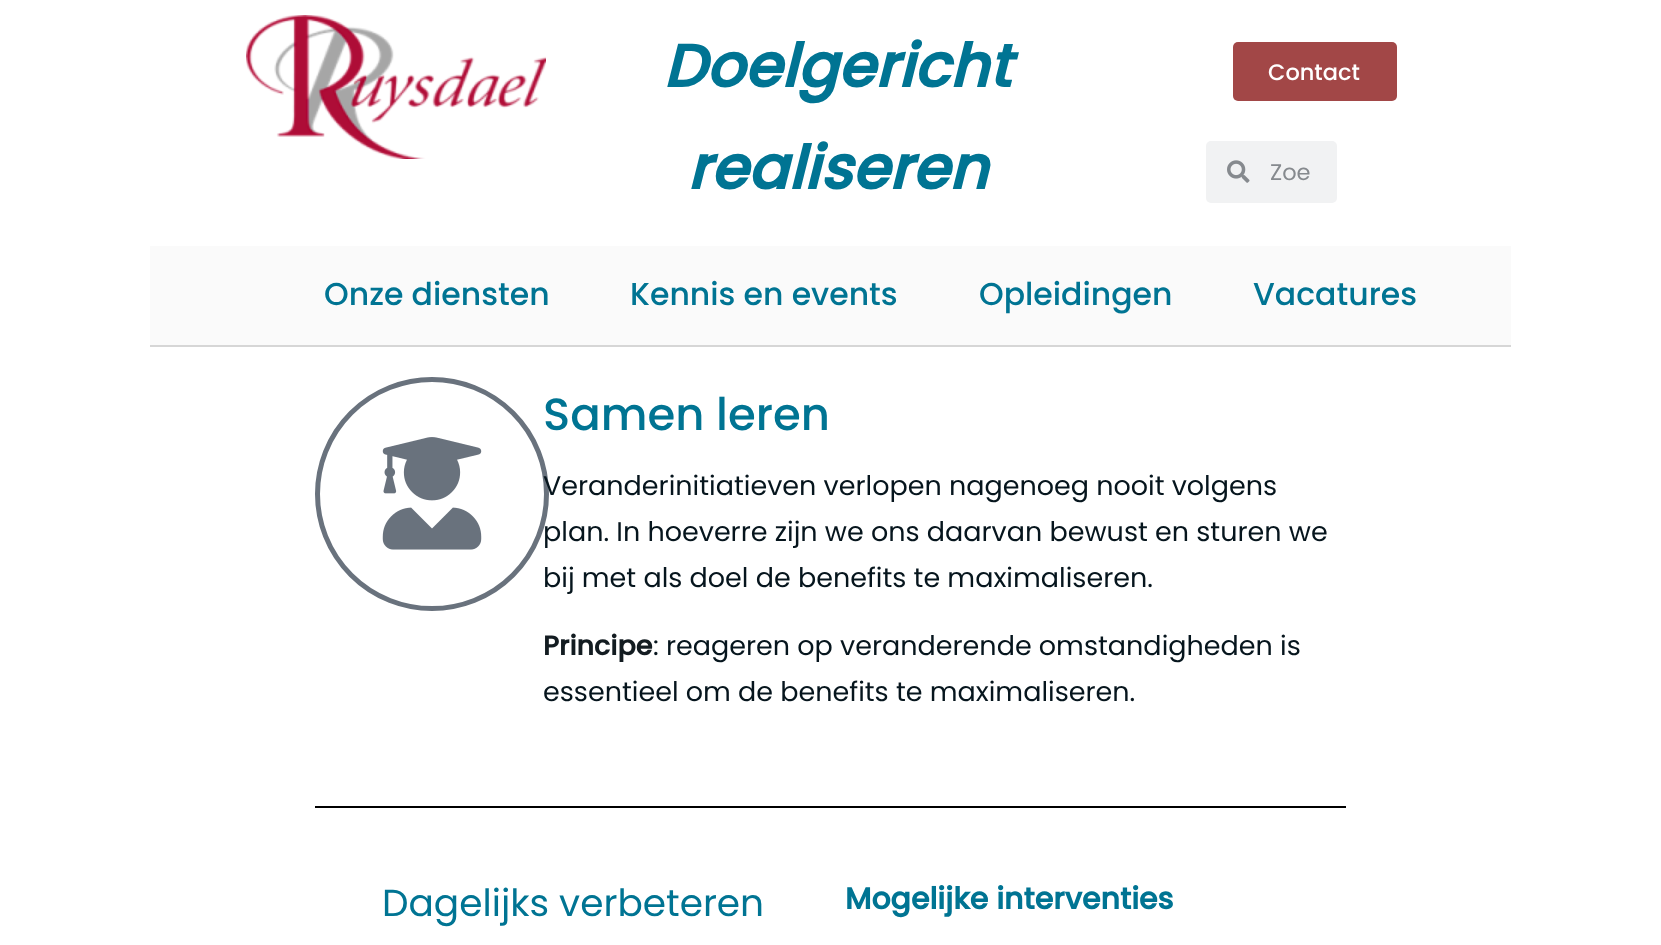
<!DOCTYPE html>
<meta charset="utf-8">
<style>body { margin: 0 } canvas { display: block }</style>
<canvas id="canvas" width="1661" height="945"></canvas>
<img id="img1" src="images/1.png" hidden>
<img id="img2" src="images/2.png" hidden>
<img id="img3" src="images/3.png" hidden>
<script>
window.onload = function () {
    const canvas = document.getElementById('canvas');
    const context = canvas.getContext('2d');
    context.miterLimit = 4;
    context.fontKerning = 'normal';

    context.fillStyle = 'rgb(255, 255, 255)';
    context.fillRect(0, 0, 1661, 945);
    context.drawImage(document.getElementById('img1'), 246, 15, 300, 144);
    context.fillStyle = 'rgb(162, 71, 71)';
    context.beginPath();
    context.roundRect(1233, 42, 164, 59, 5);
    context.fill();
    context.fillStyle = 'rgb(241, 242, 243)';
    context.beginPath();
    context.roundRect(1206, 141, 131, 62, 5);
    context.fill();
    context.drawImage(document.getElementById('img2'), 1227, 160, 23, 23);
    context.fillStyle = 'rgb(250, 250, 250)';
    context.fillRect(150, 246, 1361, 99);
    context.fillStyle = 'rgb(214, 214, 214)';
    context.fillRect(150, 345, 1361, 2);
    context.beginPath();
    context.arc(432, 494, 114.5, 0, 2 * Math.PI);
    context.strokeStyle = 'rgb(105, 114, 125)';
    context.lineWidth = 5;
    context.stroke();
    context.drawImage(document.getElementById('img3'), 382, 437, 100, 113);
    context.fillStyle = 'rgb(0, 0, 0)';
    context.fillRect(315, 806, 1031, 2);
    context.font = 'italic bold 60px Poppins';
    context.fillStyle = 'rgb(0, 116, 147)';
    context.fillText('Doelgericht', 663, 87);
    context.fillText('realiseren', 687, 189);
    context.font = '500 22.5px Poppins';
    context.fillStyle = 'rgb(255, 255, 255)';
    context.fillText('Contact', 1268, 80);
    context.font = '22.5px Poppins';
    context.fillStyle = 'rgb(134, 138, 142)';
    context.fillText('Zoe', 1270, 180);
    context.font = '500 31.5px Poppins';
    context.fillStyle = 'rgb(0, 116, 147)';
    context.fillText('Onze diensten', 324, 305);
    context.fillText('Kennis en events', 630, 305);
    context.fillText('Opleidingen', 979, 305);
    context.fillText('Vacatures', 1253, 305);
    context.font = '500 45px Poppins';
    context.fillText('Samen leren', 543, 430);
    context.font = '27px Poppins';
    context.fillStyle = 'rgb(6, 21, 29)';
    context.fillText('Veranderinitiatieven verlopen nagenoeg nooit volgens', 543, 495);
    context.fillText('plan. In hoeverre zijn we ons daarvan bewust en sturen we', 543, 541);
    context.fillText('bij met als doel de benefits te maximaliseren.', 543, 587);
    context.font = 'bold 27px Poppins';
    context.fillStyle = 'rgb(19, 28, 33)';
    context.fillText('Principe', 543, 655);
    context.font = '27px Poppins';
    context.fillStyle = 'rgb(6, 21, 29)';
    context.fillText(': reageren op veranderende omstandigheden is', 653, 655);
    context.fillText('essentieel om de benefits te maximaliseren.', 543, 701);
    context.font = '37.5px Poppins';
    context.fillStyle = 'rgb(0, 116, 147)';
    context.fillText('Dagelijks verbeteren', 382, 916);
    context.font = 'bold 30px Poppins';
    context.fillText('Mogelijke interventies', 845, 909);
};
</script>
